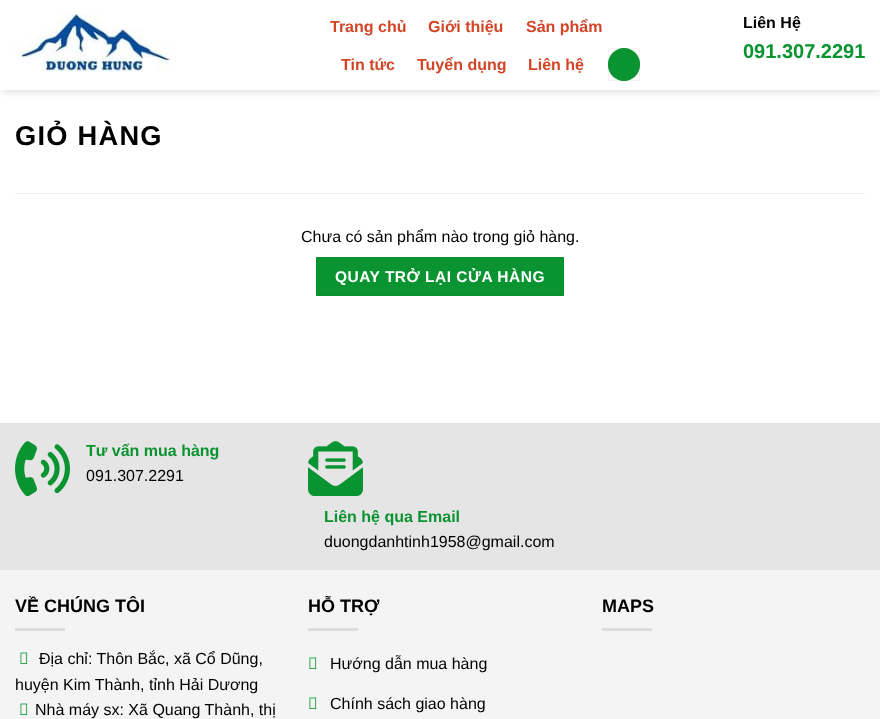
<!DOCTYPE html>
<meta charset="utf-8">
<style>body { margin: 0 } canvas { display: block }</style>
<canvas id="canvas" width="880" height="719"></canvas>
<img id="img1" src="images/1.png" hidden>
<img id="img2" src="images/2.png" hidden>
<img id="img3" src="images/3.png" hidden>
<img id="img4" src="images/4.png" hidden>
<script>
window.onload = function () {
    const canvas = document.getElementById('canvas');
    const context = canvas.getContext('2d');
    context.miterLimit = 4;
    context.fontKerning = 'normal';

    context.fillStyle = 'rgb(255, 255, 255)';
    context.fillRect(0, 0, 880, 719);
    context.save();
    context.beginPath();
    context.rect(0, 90, 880, 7);
    context.clip();
    context.fillStyle = 'rgba(0, 0, 0, 0.15)';
    context.filter = 'blur(5px)';
    context.beginPath();
    context.rect(1, 1, 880, 90);
    context.fill();
    context.filter = 'none';
    context.restore();
    context.drawImage(document.getElementById('img1'), 15, 14, 157, 58);
    context.fillStyle = 'rgb(10, 148, 49)';
    context.beginPath();
    context.roundRect(608, 48, 32, 33, 16);
    context.fill();
    context.strokeStyle = 'rgba(0, 0, 0, 0.05)';
    context.strokeRect(608.5, 48.5, 31, 32);
    context.fillStyle = 'rgb(237, 237, 237)';
    context.fillRect(15, 193, 850, 1);
    context.fillStyle = 'rgb(10, 148, 49)';
    context.beginPath();
    context.rect(316.5, 257.5, 247, 38);
    context.fill();
    context.strokeStyle = 'rgb(10, 141, 47)';
    context.stroke();
    context.fillStyle = 'rgb(229, 229, 229)';
    context.fillRect(0, 423, 880, 147);
    context.drawImage(document.getElementById('img2'), 15, 441, 55, 55);
    context.drawImage(document.getElementById('img3'), 308, 441, 55, 55);
    context.fillStyle = 'rgb(244, 244, 244)';
    context.fillRect(0, 570, 880, 149);
    context.fillStyle = 'rgb(220, 220, 220)';
    context.fillRect(15, 628, 50, 3);
    context.drawImage(document.getElementById('img4'), 20, 652, 8, 12);
    context.drawImage(document.getElementById('img4'), 20, 703, 8, 12);
    context.fillRect(308, 628, 50, 3);
    context.drawImage(document.getElementById('img4'), 309, 657, 8, 12);
    context.drawImage(document.getElementById('img4'), 309, 697, 8, 12);
    context.fillRect(602, 628, 50, 3);
    context.font = 'bold 16px Liberation Sans';
    context.fillStyle = 'rgb(211, 69, 39)';
    context.fillText('Trang chủ', 330, 32);
    context.fillText('Giới thiệu', 428, 32);
    context.fillText('Sản phẩm', 526, 32);
    context.fillText('Tin tức', 341, 70);
    context.fillText('Tuyển dụng', 417, 70);
    context.fillText('Liên hệ', 528, 70);
    context.fillStyle = 'rgb(0, 0, 0)';
    context.fillText('Liên Hệ', 743, 28);
    context.font = 'bold 20px Liberation Sans';
    context.fillStyle = 'rgb(10, 148, 49)';
    context.fillText('091.307.2291', 743, 58);
    context.letterSpacing = '1.25px';
    context.font = 'bold 27.25px Liberation Sans';
    context.fillStyle = 'rgb(0, 0, 0)';
    context.fillText('GIỎ HÀNG', 15, 145);
    context.letterSpacing = '0px';
    context.font = '16px Liberation Sans';
    context.fillText('Chưa có sản phẩm nào trong giỏ hàng.', 301, 242);
    context.letterSpacing = '0.5px';
    context.font = 'bold 15.5px Liberation Sans';
    context.fillStyle = 'rgb(255, 255, 255)';
    context.fillText('QUAY TRỞ LẠI CỬA HÀNG', 335, 282);
    context.letterSpacing = '0px';
    context.font = 'bold 16px Liberation Sans';
    context.fillStyle = 'rgb(10, 148, 49)';
    context.fillText('Tư vấn mua hàng', 86, 456);
    context.font = '16px Liberation Sans';
    context.fillStyle = 'rgb(0, 0, 0)';
    context.fillText('091.307.2291', 86, 481);
    context.font = 'bold 16px Liberation Sans';
    context.fillStyle = 'rgb(10, 148, 49)';
    context.fillText('Liên hệ qua Email', 324, 522);
    context.font = '16px Liberation Sans';
    context.fillStyle = 'rgb(0, 0, 0)';
    context.fillText('duongdanhtinh1958@gmail.com', 324, 547);
    context.font = 'bold 18px Liberation Sans';
    context.fillText('VỀ CHÚNG TÔI', 15, 612);
    context.font = '16px Liberation Sans';
    context.fillText('Địa chỉ: Thôn Bắc, xã Cổ Dũng,', 39, 664);
    context.fillText('huyện Kim Thành, tỉnh Hải Dương', 15, 690);
    context.fillText('Nhà máy sx: Xã Quang Thành, thị', 35, 715);
    context.font = 'bold 18px Liberation Sans';
    context.fillText('HỖ TRỢ', 308, 612);
    context.font = '16px Liberation Sans';
    context.fillText('Hướng dẫn mua hàng', 330, 669);
    context.fillText('Chính sách giao hàng', 330, 709);
    context.font = 'bold 18px Liberation Sans';
    context.fillText('MAPS', 602, 612);
};
</script>
